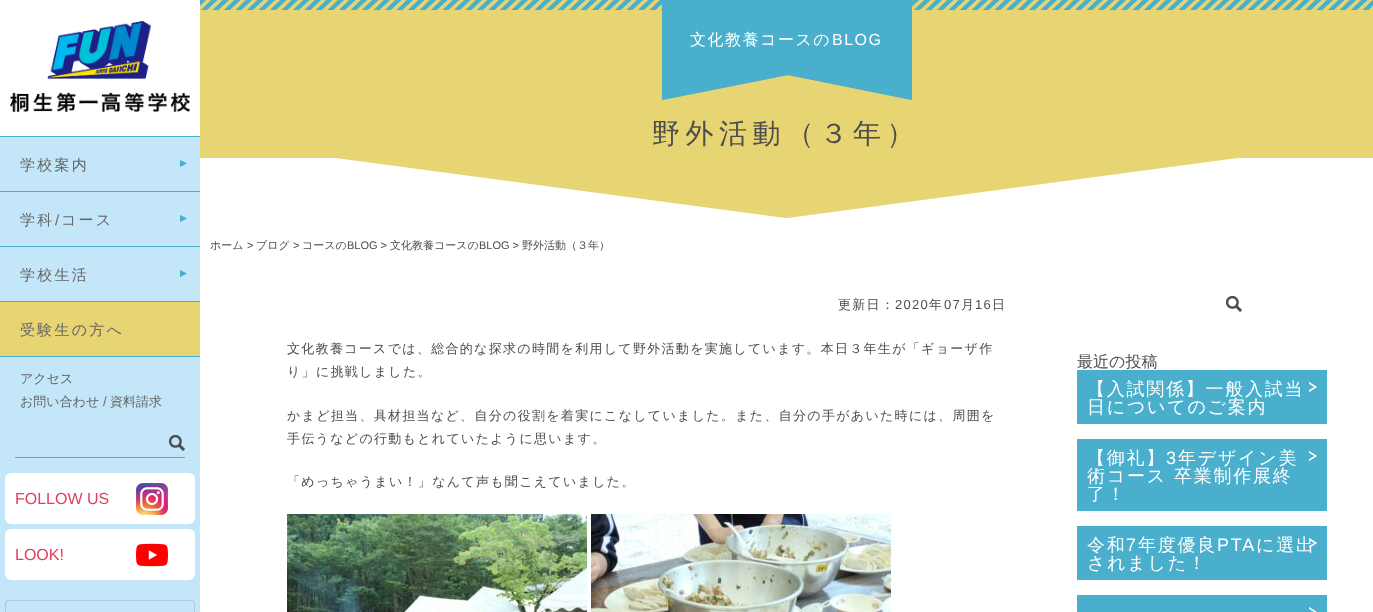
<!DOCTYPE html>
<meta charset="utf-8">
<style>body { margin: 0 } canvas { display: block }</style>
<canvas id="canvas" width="1373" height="612"></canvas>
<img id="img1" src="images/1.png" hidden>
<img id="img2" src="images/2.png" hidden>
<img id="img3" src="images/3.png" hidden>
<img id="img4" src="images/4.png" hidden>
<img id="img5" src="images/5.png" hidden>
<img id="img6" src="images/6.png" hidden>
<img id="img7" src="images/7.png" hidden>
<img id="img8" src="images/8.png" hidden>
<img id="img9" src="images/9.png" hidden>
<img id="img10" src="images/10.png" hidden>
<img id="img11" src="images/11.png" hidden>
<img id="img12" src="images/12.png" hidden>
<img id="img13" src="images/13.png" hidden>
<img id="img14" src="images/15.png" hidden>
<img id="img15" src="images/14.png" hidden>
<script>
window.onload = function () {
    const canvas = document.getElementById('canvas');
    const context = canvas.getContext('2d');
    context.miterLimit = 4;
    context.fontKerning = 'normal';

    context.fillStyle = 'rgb(255, 255, 255)';
    context.fillRect(0, 0, 1373, 612);
    context.fillStyle = 'rgb(195, 230, 249)';
    context.fillRect(0, 137, 200, 475);
    context.drawImage(document.getElementById('img1'), 10, 21, 180, 91);
    context.fillStyle = 'rgb(74, 175, 204)';
    context.fillRect(0, 136, 200, 1);
    context.drawImage(document.getElementById('img2'), 180, 160, 7, 7);
    context.fillRect(0, 191, 200, 1);
    context.drawImage(document.getElementById('img2'), 180, 215, 7, 7);
    context.fillRect(0, 246, 200, 1);
    context.drawImage(document.getElementById('img2'), 180, 270, 7, 7);
    context.fillRect(0, 301, 200, 1);
    context.fillStyle = 'rgb(231, 212, 115)';
    context.fillRect(0, 302, 200, 54);
    context.fillStyle = 'rgb(74, 175, 204)';
    context.fillRect(0, 356, 200, 1);
    context.fillRect(15, 457, 170, 1);
    context.drawImage(document.getElementById('img3'), 169, 435, 16, 16);
    context.fillStyle = 'rgb(255, 255, 255)';
    context.beginPath();
    context.roundRect(5, 473, 190, 51, 6);
    context.fill();
    context.drawImage(document.getElementById('img4'), 136, 483, 32, 32);
    context.beginPath();
    context.roundRect(5, 529, 190, 51, 6);
    context.fill();
    context.drawImage(document.getElementById('img5'), 136, 543, 32, 24);
    context.drawImage(document.getElementById('img6'), 5, 600, 190, 12);
    context.fillStyle = 'rgb(231, 212, 115)';
    context.fillRect(200, 0, 1173, 158);
    context.drawImage(document.getElementById('img7'), 200, 0, 1173, 10);
    context.drawImage(document.getElementById('img8'), 662, 0, 250, 100);
    context.drawImage(document.getElementById('img9'), 200, 158, 1173, 60);
    context.drawImage(document.getElementById('img10'), 287, 514, 300, 98);
    context.drawImage(document.getElementById('img11'), 591, 514, 300, 98);
    context.drawImage(document.getElementById('img12'), 1226, 296, 16, 16);
    context.fillStyle = 'rgb(74, 175, 204)';
    context.fillRect(1077, 370, 250, 54);
    context.drawImage(document.getElementById('img13'), 1309, 382, 8, 10);
    context.fillRect(1077, 439, 250, 72);
    context.drawImage(document.getElementById('img13'), 1309, 451, 8, 10);
    context.fillRect(1077, 526, 250, 54);
    context.fillRect(1077, 595, 250, 17);
    context.drawImage(document.getElementById('img14'), 1309, 607, 8, 5);
    context.letterSpacing = '2.25px';
    context.font = '500 15px WenQuanYi Zen Hei';
    context.fillStyle = 'rgb(102, 102, 102)';
    context.fillText('学校案内', 20, 170);
    context.fillText('学科', 20, 225);
    context.font = '15px Liberation Sans';
    context.fillText('/', 55, 225);
    context.font = '500 15px WenQuanYi Zen Hei';
    context.fillText('コース', 61, 225);
    context.fillText('学校生活', 20, 280);
    context.fillText('受験生の方へ', 20, 335);
    context.letterSpacing = '0px';
    context.font = '500 13px WenQuanYi Zen Hei';
    context.fillText('アクセス', 20, 383);
    context.fillText('お問い合わせ', 20, 406);
    context.font = '13px Liberation Sans';
    context.fillText('/', 103, 406);
    context.font = '500 13px WenQuanYi Zen Hei';
    context.fillText('資料請求', 110, 406);
    context.font = '16px Liberation Sans';
    context.fillStyle = 'rgb(227, 61, 95)';
    context.fillText('FOLLOW US', 15, 504);
    context.fillText('LOOK!', 15, 560);
    context.letterSpacing = '1.5px';
    context.font = '500 16px WenQuanYi Zen Hei';
    context.fillStyle = 'rgb(255, 255, 255)';
    context.fillText('文化教養コースの', 690, 45);
    context.font = '16px Liberation Sans';
    context.fillText('BLOG', 832, 45);
    context.letterSpacing = '5.5px';
    context.font = '500 28px WenQuanYi Zen Hei';
    context.fillStyle = 'rgb(77, 77, 77)';
    context.fillText('野外活動（３年）', 652, 143);
    context.letterSpacing = '0px';
    context.font = '500 11px WenQuanYi Zen Hei';
    context.fillText('ホーム', 210, 249);
    context.font = '11px Liberation Sans';
    context.fillText('>', 247, 249);
    context.font = '500 11px WenQuanYi Zen Hei';
    context.fillText('ブログ', 256, 249);
    context.font = '11px Liberation Sans';
    context.fillText('>', 293, 249);
    context.font = '500 11px WenQuanYi Zen Hei';
    context.fillText('コースの', 302, 249);
    context.font = '11px Liberation Sans';
    context.fillText('BLOG >', 347, 249);
    context.font = '500 11px WenQuanYi Zen Hei';
    context.fillText('文化教養コースの', 390, 249);
    context.font = '11px Liberation Sans';
    context.fillText('BLOG >', 479, 249);
    context.font = '500 11px WenQuanYi Zen Hei';
    context.fillText('野外活動（３年）', 522, 249);
    context.letterSpacing = '1.3px';
    context.font = '500 13px WenQuanYi Zen Hei';
    context.fillText('更新日：', 838, 309);
    context.font = '13px Liberation Sans';
    context.fillText('2020', 895, 309);
    context.font = '500 13px WenQuanYi Zen Hei';
    context.fillText('年', 929, 309);
    context.font = '13px Liberation Sans';
    context.fillText('07', 944, 309);
    context.font = '500 13px WenQuanYi Zen Hei';
    context.fillText('月', 961, 309);
    context.font = '13px Liberation Sans';
    context.fillText('16', 975, 309);
    context.font = '500 13px WenQuanYi Zen Hei';
    context.fillText('日', 992, 309);
    context.fillText('文化教養コースでは、総合的な探求の時間を利用して野外活動を実施しています。本日３年生が「ギョーザ作', 287, 353);
    context.fillText('り」に挑戦しました。', 287, 376);
    context.fillText('かまど担当、具材担当など、自分の役割を着実にこなしていました。また、自分の手があいた時には、周囲を', 287, 420);
    context.fillText('手伝うなどの行動もとれていたように思います。', 287, 443);
    context.fillText('「めっちゃうまい！」なんて声も聞こえていました。', 287, 486);
    context.letterSpacing = '0px';
    context.font = '500 16px WenQuanYi Zen Hei';
    context.fillText('最近の投稿', 1077, 367);
    context.letterSpacing = '1.75px';
    context.font = '500 18px WenQuanYi Zen Hei';
    context.fillStyle = 'rgb(255, 255, 255)';
    context.fillText('【入試関係】一般入試当', 1087, 395);
    context.fillText('日についてのご案内', 1087, 413);
    context.fillText('【御礼】', 1087, 464);
    context.font = '18px Liberation Sans';
    context.fillText('3', 1166, 464);
    context.font = '500 18px WenQuanYi Zen Hei';
    context.fillText('年デザイン美', 1178, 464);
    context.fillText('術コース 卒業制作展終', 1087, 482);
    context.fillText('了！', 1087, 500);
    context.fillText('令和', 1087, 551);
    context.font = '18px Liberation Sans';
    context.fillText('7', 1126, 551);
    context.font = '500 18px WenQuanYi Zen Hei';
    context.fillText('年度優良', 1138, 551);
    context.font = '18px Liberation Sans';
    context.fillText('PTA', 1217, 551);
    context.font = '500 18px WenQuanYi Zen Hei';
    context.fillText('に選出', 1256, 551);
    context.drawImage(document.getElementById('img15'), 1309, 538, 8, 10);
    context.fillText('されました！', 1087, 569);
};
</script>
